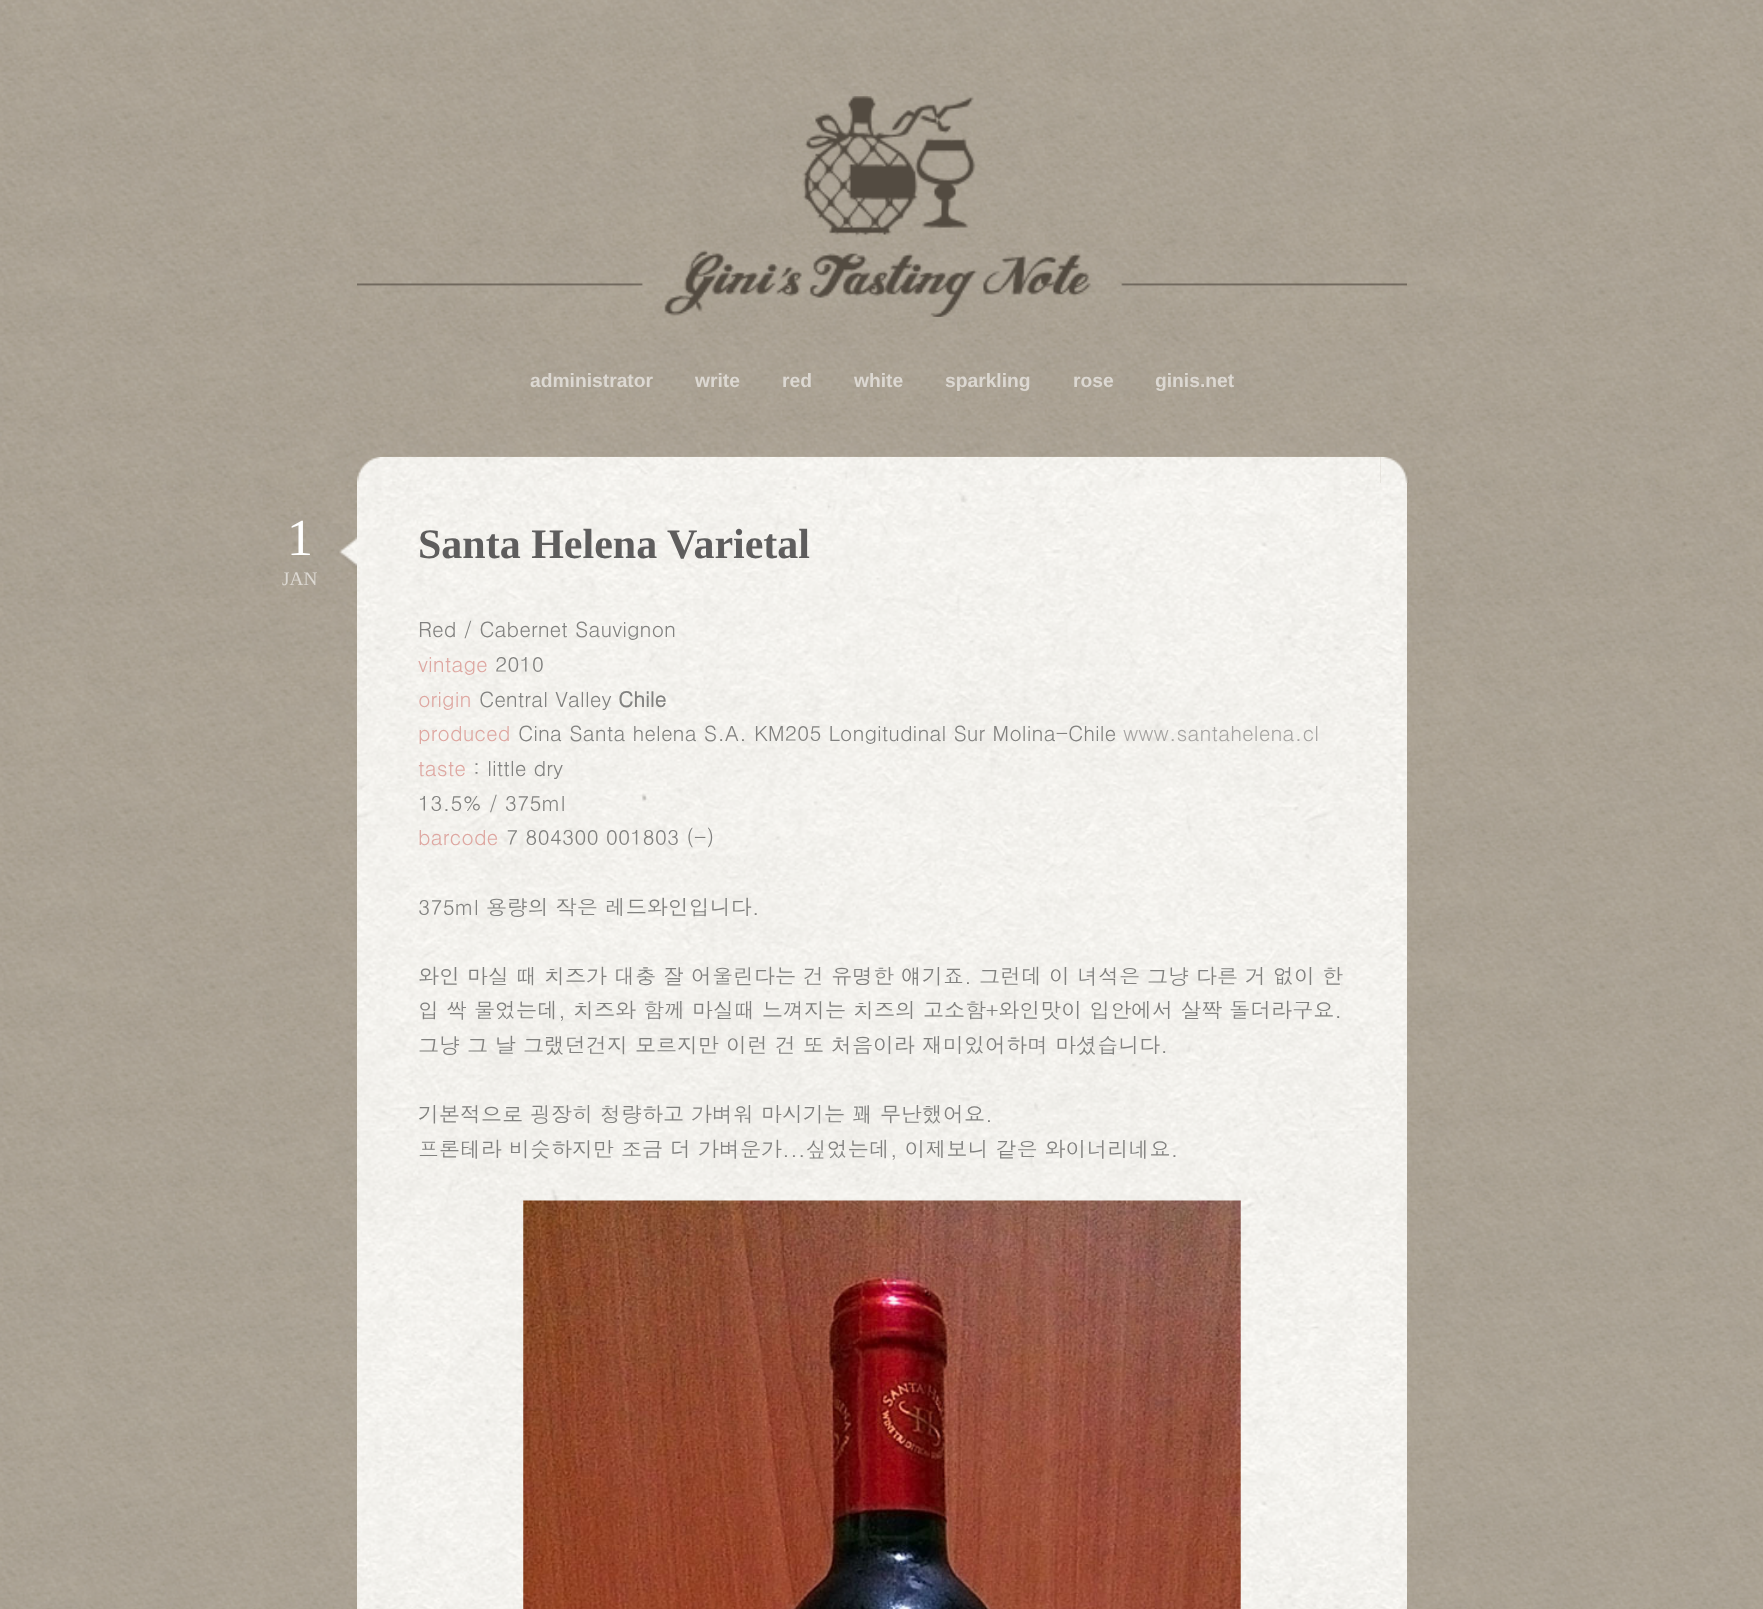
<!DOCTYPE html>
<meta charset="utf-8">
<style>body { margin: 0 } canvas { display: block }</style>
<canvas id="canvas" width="1763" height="1609"></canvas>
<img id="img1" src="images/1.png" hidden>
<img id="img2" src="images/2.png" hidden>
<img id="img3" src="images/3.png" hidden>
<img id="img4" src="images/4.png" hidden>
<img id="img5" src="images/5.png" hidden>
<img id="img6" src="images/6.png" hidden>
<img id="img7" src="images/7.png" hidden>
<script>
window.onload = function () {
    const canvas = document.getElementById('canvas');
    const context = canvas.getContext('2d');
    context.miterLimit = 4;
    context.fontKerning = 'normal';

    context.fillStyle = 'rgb(255, 255, 255)';
    context.fillRect(0, 0, 1763, 1609);
    context.drawImage(document.getElementById('img1'), 0, 0, 1763, 1609);
    context.drawImage(document.getElementById('img2'), 357, 96, 1050, 221);
    context.drawImage(document.getElementById('img3'), 357, 456, 1024, 27);
    context.drawImage(document.getElementById('img4'), 1380, 456, 29, 27);
    context.drawImage(document.getElementById('img5'), 357, 483, 1050, 1126);
    context.drawImage(document.getElementById('img6'), 339, 537, 18, 31);
    context.drawImage(document.getElementById('img7'), 523, 1200, 718, 409);
    context.font = 'bold 19.25px Liberation Sans';
    context.fillStyle = 'rgb(220, 216, 210)';
    context.fillText('administrator', 530, 387);
    context.fillText('write', 695, 387);
    context.fillText('red', 782, 387);
    context.fillText('white', 854, 387);
    context.fillText('sparkling', 945, 387);
    context.fillText('rose', 1073, 387);
    context.fillText('ginis.net', 1155, 387);
    context.font = '52px Liberation Serif';
    context.fillStyle = 'rgb(255, 255, 255)';
    context.fillText('1', 287, 555);
    context.font = '19.25px Liberation Serif';
    context.fillStyle = 'rgb(220, 216, 210)';
    context.fillText('JAN', 282, 585);
    context.font = 'bold 42px Liberation Serif';
    context.fillStyle = 'rgb(94, 93, 93)';
    context.fillText('Santa Helena Varietal', 418, 558);
    context.font = '21px Dotum';
    context.fillStyle = 'rgb(129, 129, 127)';
    context.fillText('Red / Cabernet Sauvignon', 418, 637);
    context.fillStyle = 'rgb(222, 167, 161)';
    context.fillText('vintage', 418, 672);
    context.fillStyle = 'rgb(129, 129, 127)';
    context.fillText('2010', 495, 672);
    context.fillStyle = 'rgb(222, 167, 161)';
    context.fillText('origin', 418, 707);
    context.fillStyle = 'rgb(129, 129, 127)';
    context.fillText('Central Valley', 479, 707);
    context.font = 'bold 21px Dotum';
    context.fillText('Chile', 618, 707);
    context.font = '21px Dotum';
    context.fillStyle = 'rgb(222, 167, 161)';
    context.fillText('produced', 418, 741);
    context.fillStyle = 'rgb(129, 129, 127)';
    context.fillText('Cina Santa helena S.A. KM205 Longitudinal Sur Molina-Chile', 518, 741);
    context.fillStyle = 'rgb(167, 165, 163)';
    context.fillText('www.santahelena.cl', 1123, 741);
    context.fillStyle = 'rgb(222, 167, 161)';
    context.fillText('taste', 418, 776);
    context.fillStyle = 'rgb(129, 129, 127)';
    context.fillText(': little dry', 473, 776);
    context.fillText('13.5% / 375ml', 418, 811);
    context.fillStyle = 'rgb(222, 167, 161)';
    context.fillText('barcode', 418, 845);
    context.fillStyle = 'rgb(129, 129, 127)';
    context.fillText('7 804300 001803 (-)', 506, 845);
    context.fillText('375ml 용량의 작은 레드와인입니다.', 418, 915);
    context.fillText('와인 마실 때 치즈가 대충 잘 어울린다는 건 유명한 얘기죠. 그런데 이 녀석은 그냥 다른 거 없이 한', 418, 984);
    context.fillText('입 싹 물었는데, 치즈와 함께 마실때 느껴지는 치즈의 고소함+와인맛이 입안에서 살짝 돌더라구요.', 418, 1018);
    context.fillText('그냥 그 날 그랬던건지 모르지만 이런 건 또 처음이라 재미있어하며 마셨습니다.', 418, 1053);
    context.fillText('기본적으로 굉장히 청량하고 가벼워 마시기는 꽤 무난했어요.', 418, 1122);
    context.fillText('프론테라 비슷하지만 조금 더 가벼운가...싶었는데, 이제보니 같은 와이너리네요.', 418, 1157);
};
</script>
